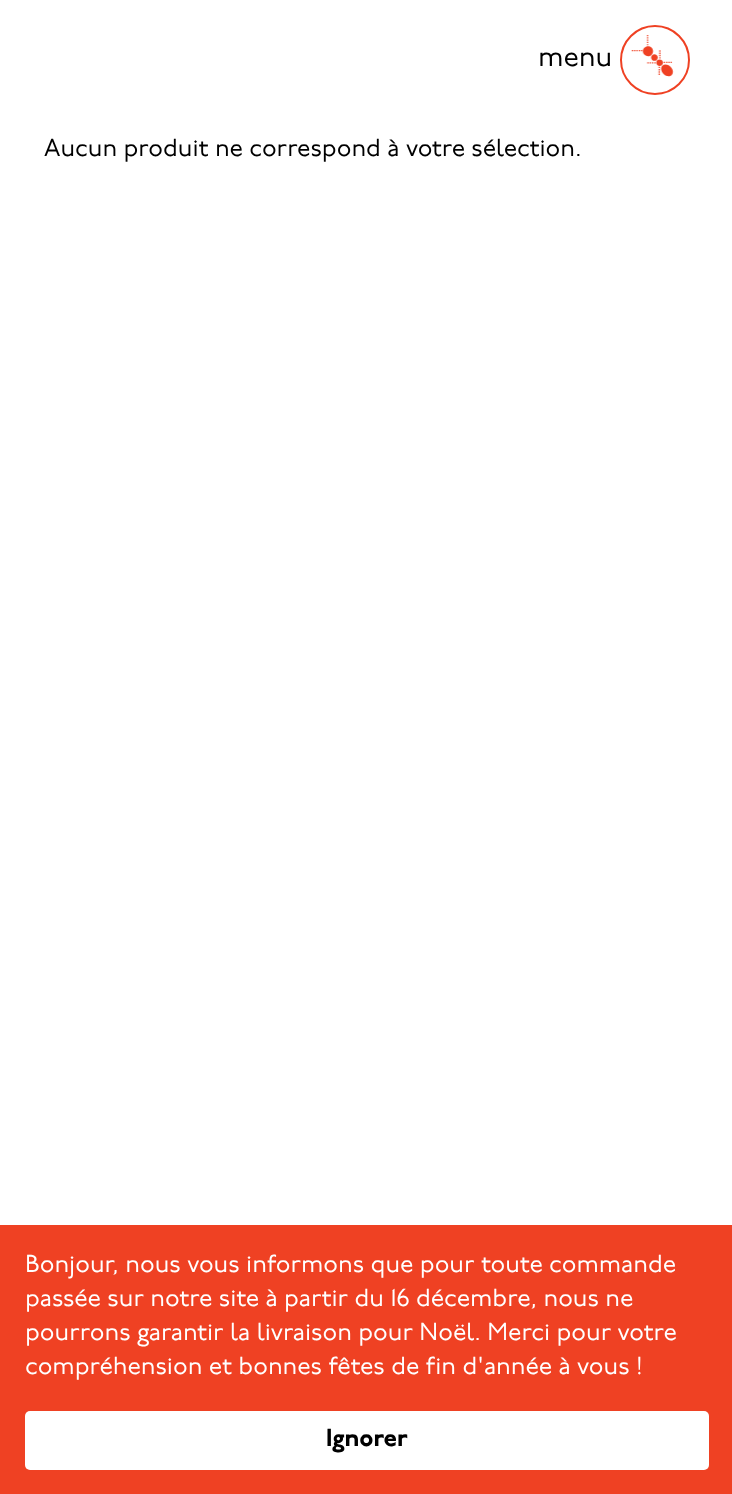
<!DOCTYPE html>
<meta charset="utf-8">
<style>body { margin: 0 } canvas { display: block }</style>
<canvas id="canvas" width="732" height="1494"></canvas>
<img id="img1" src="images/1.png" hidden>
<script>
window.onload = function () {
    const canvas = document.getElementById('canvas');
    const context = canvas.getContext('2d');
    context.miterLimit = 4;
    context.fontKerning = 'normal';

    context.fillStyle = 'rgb(255, 255, 255)';
    context.fillRect(0, 0, 732, 1494);
    context.beginPath();
    context.arc(655, 60, 34, 0, 2 * Math.PI);
    context.strokeStyle = 'rgb(239, 65, 35)';
    context.lineWidth = 2;
    context.stroke();
    context.drawImage(document.getElementById('img1'), 631, 35, 43, 42);
    context.fillStyle = 'rgb(239, 65, 35)';
    context.fillRect(0, 1225, 732, 269);
    context.fillStyle = 'rgb(255, 255, 255)';
    context.beginPath();
    context.roundRect(25, 1411, 684, 59, 5);
    context.fill();
    context.font = '28px "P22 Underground"';
    context.fillStyle = 'rgb(0, 0, 0)';
    context.fillText('menu', 538, 66);
    context.font = '24.5px "P22 Underground"';
    context.fillText('Aucun produit ne correspond à votre sélection.', 44, 156);
    context.fillStyle = 'rgb(255, 255, 255)';
    context.fillText('Bonjour, nous vous informons que pour toute commande', 25, 1272);
    context.fillText('passée sur notre site à partir du 16 décembre, nous ne', 25, 1306);
    context.fillText('pourrons garantir la livraison pour Noël. Merci pour votre', 25, 1340);
    context.fillText('compréhension et bonnes fêtes de fin d\'année à vous !', 25, 1374);
    context.font = '900 24.5px "P22 Underground"';
    context.fillStyle = 'rgb(0, 0, 0)';
    context.fillText('Ignorer', 326, 1446);
};
</script>
